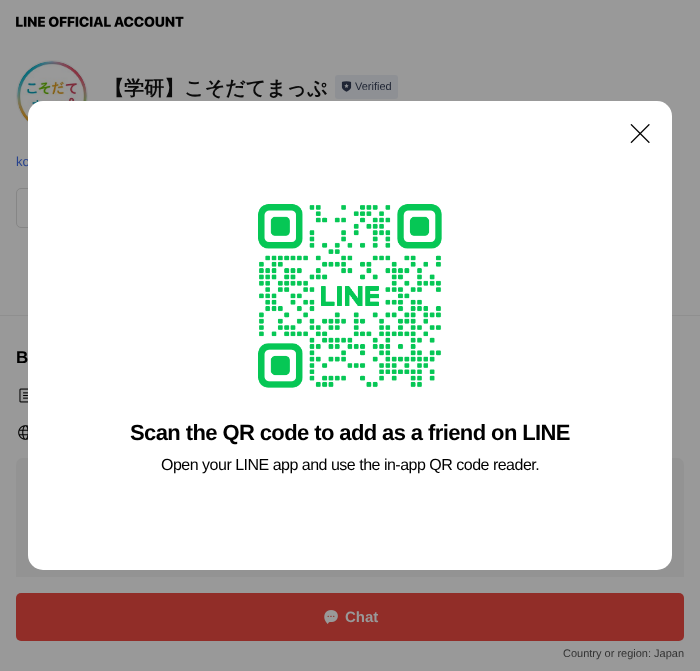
<!DOCTYPE html>
<meta charset="utf-8">
<style>body { margin: 0 } canvas { display: block }</style>
<canvas id="canvas" width="700" height="671"></canvas>
<img id="img1" src="images/1.png" hidden>
<img id="img2" src="images/2.png" hidden>
<img id="img3" src="images/3.png" hidden>
<img id="img4" src="images/4.png" hidden>
<img id="img5" src="images/5.png" hidden>
<img id="img6" src="images/6.png" hidden>
<img id="img7" src="images/7.png" hidden>
<img id="img8" src="images/8.png" hidden>
<script>
window.onload = function () {
    const canvas = document.getElementById('canvas');
    const context = canvas.getContext('2d');
    context.miterLimit = 4;
    context.fontKerning = 'normal';

    context.fillStyle = 'rgb(153, 153, 153)';
    context.fillRect(0, 0, 700, 671);
    context.drawImage(document.getElementById('img1'), 16, 16, 168, 11);
    context.beginPath();
    context.arc(52, 96, 35.5, 0, 2 * Math.PI);
    context.strokeStyle = 'rgb(145, 145, 145)';
    context.stroke();
    context.drawImage(document.getElementById('img2'), 17, 61, 70, 61);
    context.fillStyle = 'rgb(142, 144, 148)';
    context.beginPath();
    context.roundRect(335, 75, 63, 24, 3);
    context.fill();
    context.drawImage(document.getElementById('img3'), 341, 81, 11, 11);
    context.beginPath();
    context.roundRect(16.5, 188.5, 82, 39, 4.5);
    context.strokeStyle = 'rgb(134, 134, 134)';
    context.stroke();
    context.fillStyle = 'rgb(143, 143, 143)';
    context.fillRect(0, 315, 700, 1);
    context.drawImage(document.getElementById('img4'), 19, 388, 9, 15);
    context.drawImage(document.getElementById('img5'), 18, 425, 10, 15);
    context.fillStyle = 'rgb(147, 147, 147)';
    context.beginPath();
    context.roundRect(16, 458, 668, 180, 7);
    context.fill();
    context.fillStyle = 'rgb(153, 153, 153)';
    context.fillRect(16, 577, 668, 61);
    context.fillStyle = 'rgb(145, 45, 40)';
    context.beginPath();
    context.roundRect(16, 593, 668, 48, 5);
    context.fill();
    context.drawImage(document.getElementById('img6'), 324, 610, 14, 14);
    context.font = 'bold 20px WenQuanYi Zen Hei';
    context.fillStyle = 'rgb(10, 10, 10)';
    context.fillText('【学研】こそだてまっぷ', 104, 95);
    context.font = '11px Liberation Sans';
    context.fillStyle = 'rgb(31, 37, 52)';
    context.fillText('Verified', 355, 90);
    context.font = '13px Liberation Sans';
    context.fillStyle = 'rgb(40, 67, 142)';
    context.fillText('ko', 16, 166);
    context.font = 'bold 17px Liberation Sans';
    context.fillStyle = 'rgb(0, 0, 0)';
    context.fillText('B', 16, 363);
    context.font = 'bold 15px Liberation Sans';
    context.fillStyle = 'rgb(153, 153, 153)';
    context.fillText('Chat', 345, 622);
    context.font = '11px Liberation Sans';
    context.fillStyle = 'rgb(51, 51, 51)';
    context.fillText('Country or region: Japan', 563, 657);
    context.fillStyle = 'rgb(255, 255, 255)';
    context.beginPath();
    context.roundRect(28, 101, 644, 469, 15);
    context.fill();
    context.drawImage(document.getElementById('img7'), 630, 124, 20, 20);
    context.drawImage(document.getElementById('img8'), 258, 204, 184, 184);
    context.letterSpacing = '-0.6px';
    context.font = 'bold 22px Liberation Sans';
    context.fillStyle = 'rgb(0, 0, 0)';
    context.fillText('Scan the QR code to add as a friend on LINE', 130, 440);
    context.letterSpacing = '-0.5px';
    context.font = '16px Liberation Sans';
    context.fillText('Open your LINE app and use the in-app QR code reader.', 161, 470);
};
</script>
